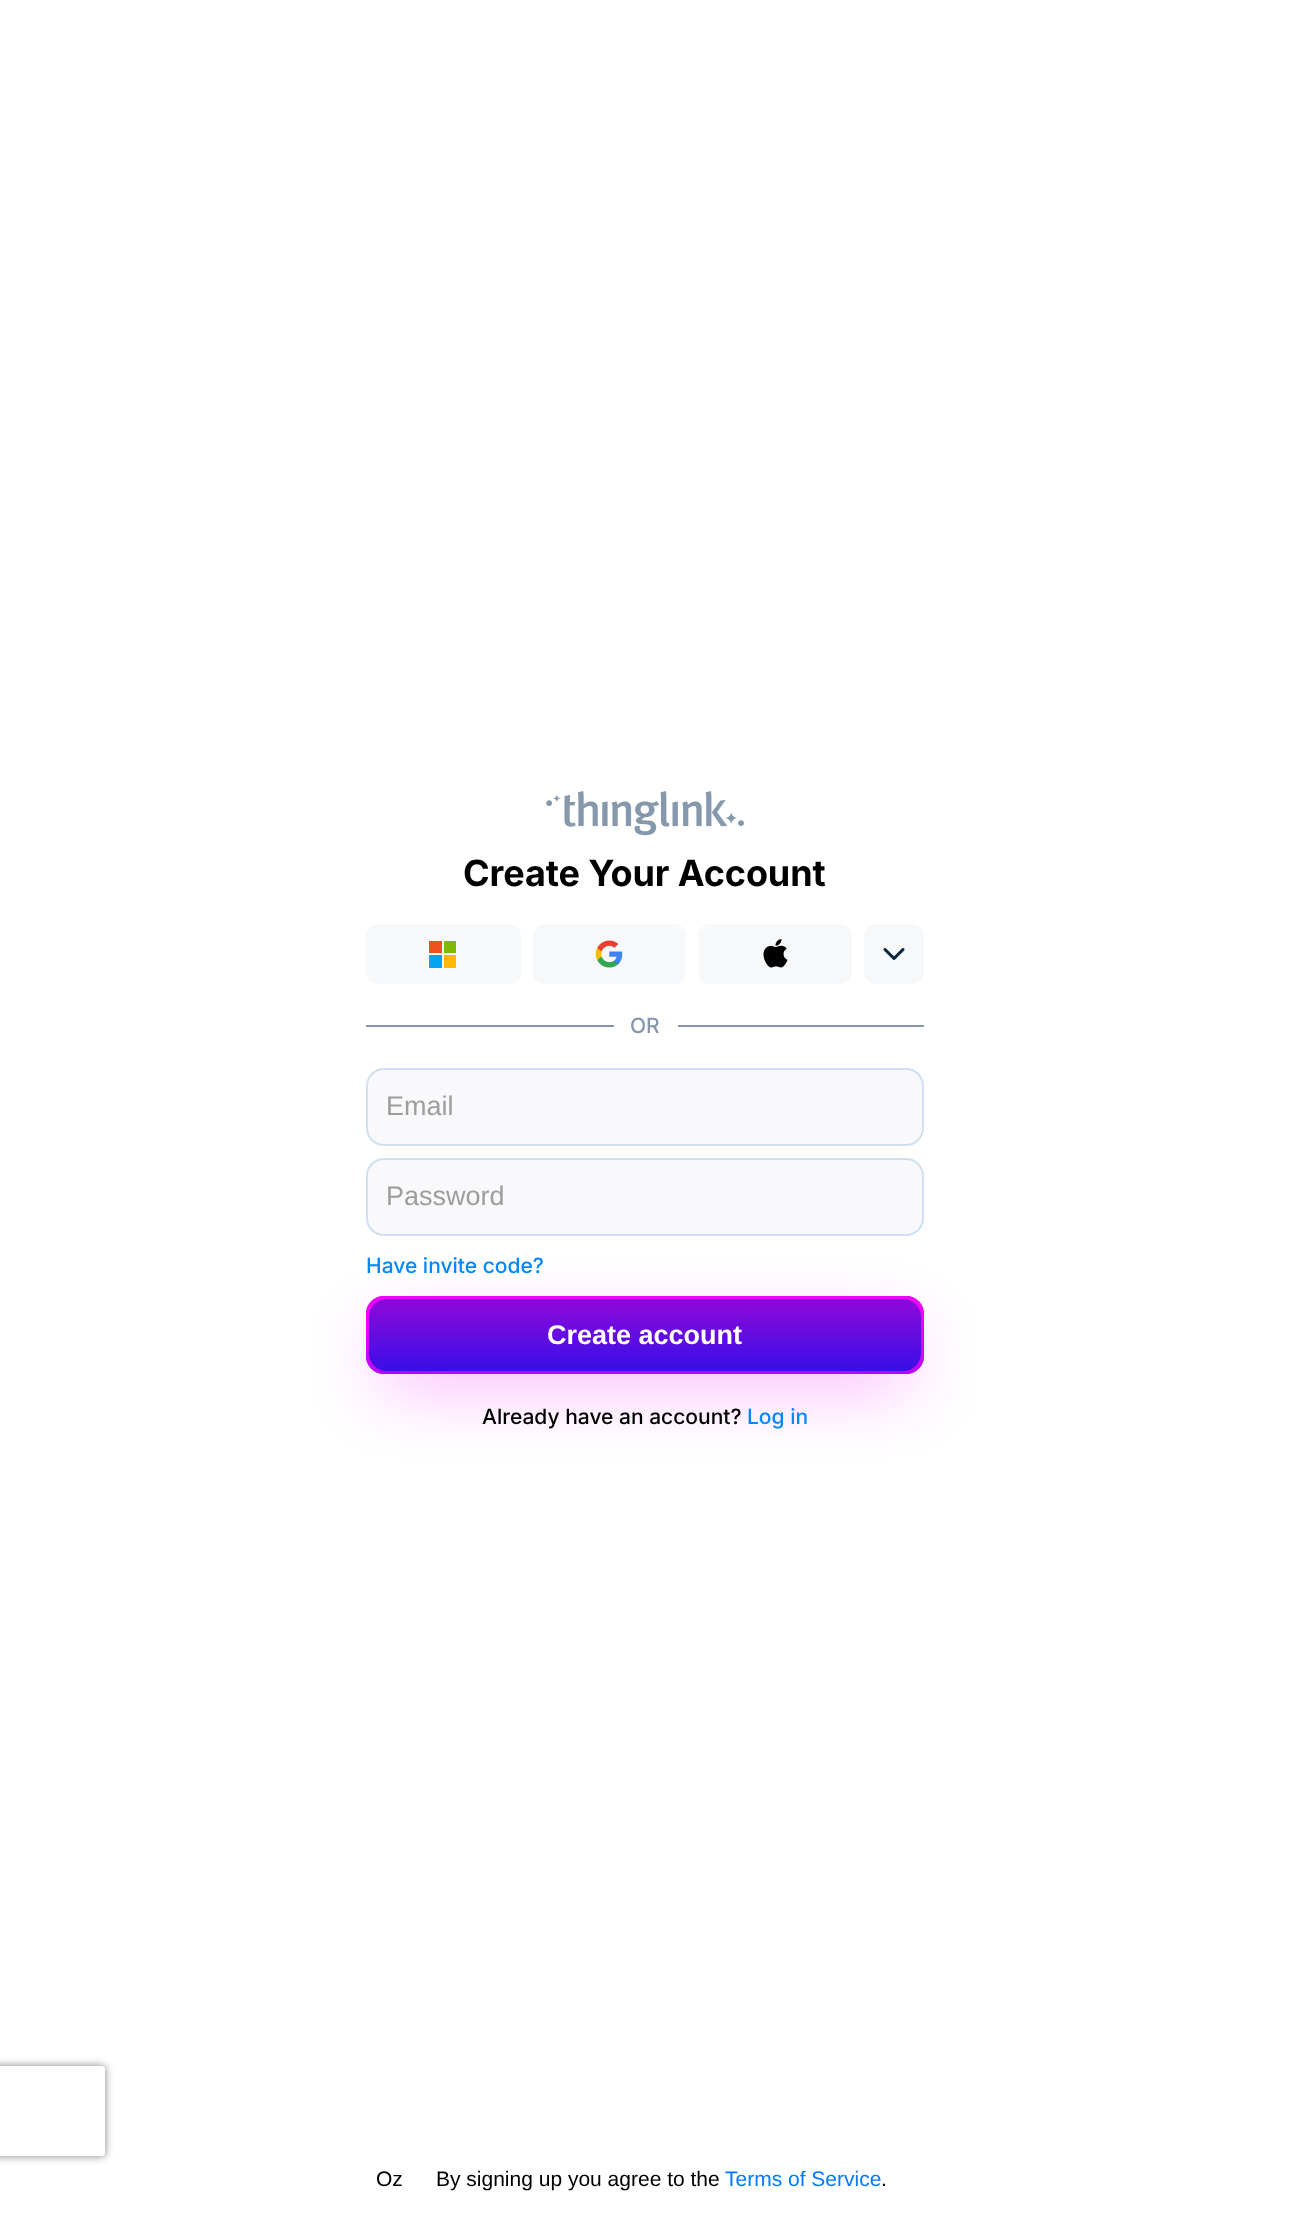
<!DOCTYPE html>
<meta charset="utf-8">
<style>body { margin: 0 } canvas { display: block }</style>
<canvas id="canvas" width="1290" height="2222"></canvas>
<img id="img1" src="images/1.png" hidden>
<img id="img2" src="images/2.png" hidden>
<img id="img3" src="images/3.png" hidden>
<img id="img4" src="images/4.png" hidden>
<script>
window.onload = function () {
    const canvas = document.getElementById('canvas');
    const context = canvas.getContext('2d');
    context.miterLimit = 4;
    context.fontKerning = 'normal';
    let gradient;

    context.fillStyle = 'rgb(255, 255, 255)';
    context.fillRect(0, 0, 1290, 2222);
    context.drawImage(document.getElementById('img1'), 546, 791, 198, 45);
    context.fillStyle = 'rgb(246, 248, 250)';
    context.beginPath();
    context.roundRect(366, 924, 155, 60, 12);
    context.fill();
    context.fillStyle = 'rgb(242, 80, 34)';
    context.fillRect(429, 941, 13, 12);
    context.fillStyle = 'rgb(127, 186, 0)';
    context.fillRect(444, 941, 12, 12);
    context.fillStyle = 'rgb(0, 164, 239)';
    context.fillRect(429, 955, 13, 13);
    context.fillStyle = 'rgb(255, 185, 0)';
    context.fillRect(444, 955, 12, 13);
    context.fillStyle = 'rgb(246, 248, 250)';
    context.beginPath();
    context.roundRect(533, 924, 153, 60, 12);
    context.fill();
    context.drawImage(document.getElementById('img2'), 595, 940, 28, 28);
    context.beginPath();
    context.roundRect(698, 924, 154, 60, 12);
    context.fill();
    context.drawImage(document.getElementById('img3'), 763, 939, 25, 29);
    context.beginPath();
    context.roundRect(864, 924, 60, 60, 12);
    context.fill();
    context.drawImage(document.getElementById('img4'), 883, 948, 22, 12);
    context.fillStyle = 'rgb(134, 153, 172)';
    context.fillRect(366, 1025, 248, 2);
    context.fillRect(678, 1025, 246, 2);
    context.fillStyle = 'rgb(249, 249, 252)';
    context.beginPath();
    context.roundRect(367, 1069, 556, 76, 17);
    context.fill();
    context.strokeStyle = 'rgb(209, 224, 240)';
    context.lineWidth = 2;
    context.stroke();
    context.beginPath();
    context.roundRect(367, 1159, 556, 76, 17);
    context.fill();
    context.stroke();
    context.fillStyle = 'rgba(243, 2, 253, 0.4)';
    context.filter = 'blur(36px)';
    context.beginPath();
    context.rect(384, 1338, 522, 42);
    context.fill();
    context.filter = 'none';
    gradient = context.createLinearGradient(645, 1296, 645, 1418);
    gradient.addColorStop(0.05, 'rgb(137, 9, 221)');
    gradient.addColorStop(1, 'rgb(6, 19, 234)');
    context.fillStyle = gradient;
    context.beginPath();
    context.roundRect(366, 1296, 558, 78, 18);
    context.fill();
    gradient = context.createLinearGradient(645, 1296, 645, 1418);
    gradient.addColorStop(0.05, 'rgb(243, 2, 253)');
    gradient.addColorStop(1, 'rgba(243, 2, 253, 0.5)');
    context.fillStyle = gradient;
    context.beginPath();
    context.roundRect(366, 1296, 558, 78, 18);
    context.fill();
    gradient = context.createLinearGradient(645, 1299, 645, 1411);
    gradient.addColorStop(0.05, 'rgb(137, 9, 221)');
    gradient.addColorStop(1, 'rgb(6, 19, 234)');
    context.fillStyle = gradient;
    context.beginPath();
    context.roundRect(369, 1299, 552, 72, 18);
    context.fill();
    context.save();
    context.beginPath();
    context.moveTo(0, 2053);
    context.lineTo(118, 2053);
    context.lineTo(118, 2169);
    context.lineTo(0, 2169);
    context.closePath();
    context.moveTo(-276, 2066);
    context.lineTo(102, 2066);
    context.bezierCurveTo(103.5, 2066, 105, 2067.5, 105, 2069);
    context.lineTo(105, 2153);
    context.bezierCurveTo(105, 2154.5, 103.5, 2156, 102, 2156);
    context.lineTo(-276, 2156);
    context.bezierCurveTo(-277.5, 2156, -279, 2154.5, -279, 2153);
    context.lineTo(-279, 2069);
    context.bezierCurveTo(-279, 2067.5, -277.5, 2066, -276, 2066);
    context.closePath();
    context.clip('evenodd');
    context.fillStyle = 'rgb(128, 128, 128)';
    context.filter = 'blur(4px)';
    context.beginPath();
    context.roundRect(-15, 2066, 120, 90, 3);
    context.fill();
    context.filter = 'none';
    context.restore();
    context.letterSpacing = '-0.1px';
    context.font = 'bold 36px Inter';
    context.fillStyle = 'rgb(0, 0, 0)';
    context.fillText('Create Your Account', 463, 886);
    context.letterSpacing = '0px';
    context.font = '500 21px Inter';
    context.fillStyle = 'rgb(134, 153, 172)';
    context.fillText('OR', 630, 1033);
    context.font = '27px Liberation Sans';
    context.fillStyle = 'rgb(157, 157, 158)';
    context.fillText('Email', 386, 1115);
    context.fillText('Password', 386, 1205);
    context.font = '500 21px Inter';
    context.fillStyle = 'rgb(0, 136, 255)';
    context.fillText('Have invite code?', 366, 1273);
    context.font = 'bold 27px Liberation Sans';
    context.fillStyle = 'rgb(255, 255, 255)';
    context.fillText('Create account', 547, 1344);
    context.font = '500 21px Inter';
    context.fillStyle = 'rgb(0, 0, 0)';
    context.fillText('Already have an account?', 482, 1424);
    context.fillStyle = 'rgb(0, 136, 255)';
    context.fillText('Log in', 747, 1424);
    context.font = '21px Liberation Sans';
    context.fillStyle = 'rgb(0, 0, 0)';
    context.fillText('Oz', 376, 2186);
    context.fillText('By signing up you agree to the', 436, 2186);
    context.fillStyle = 'rgb(0, 123, 255)';
    context.fillText('Terms of Service', 725, 2186);
    context.fillStyle = 'rgb(0, 0, 0)';
    context.fillText('.', 881, 2186);
};
</script>
